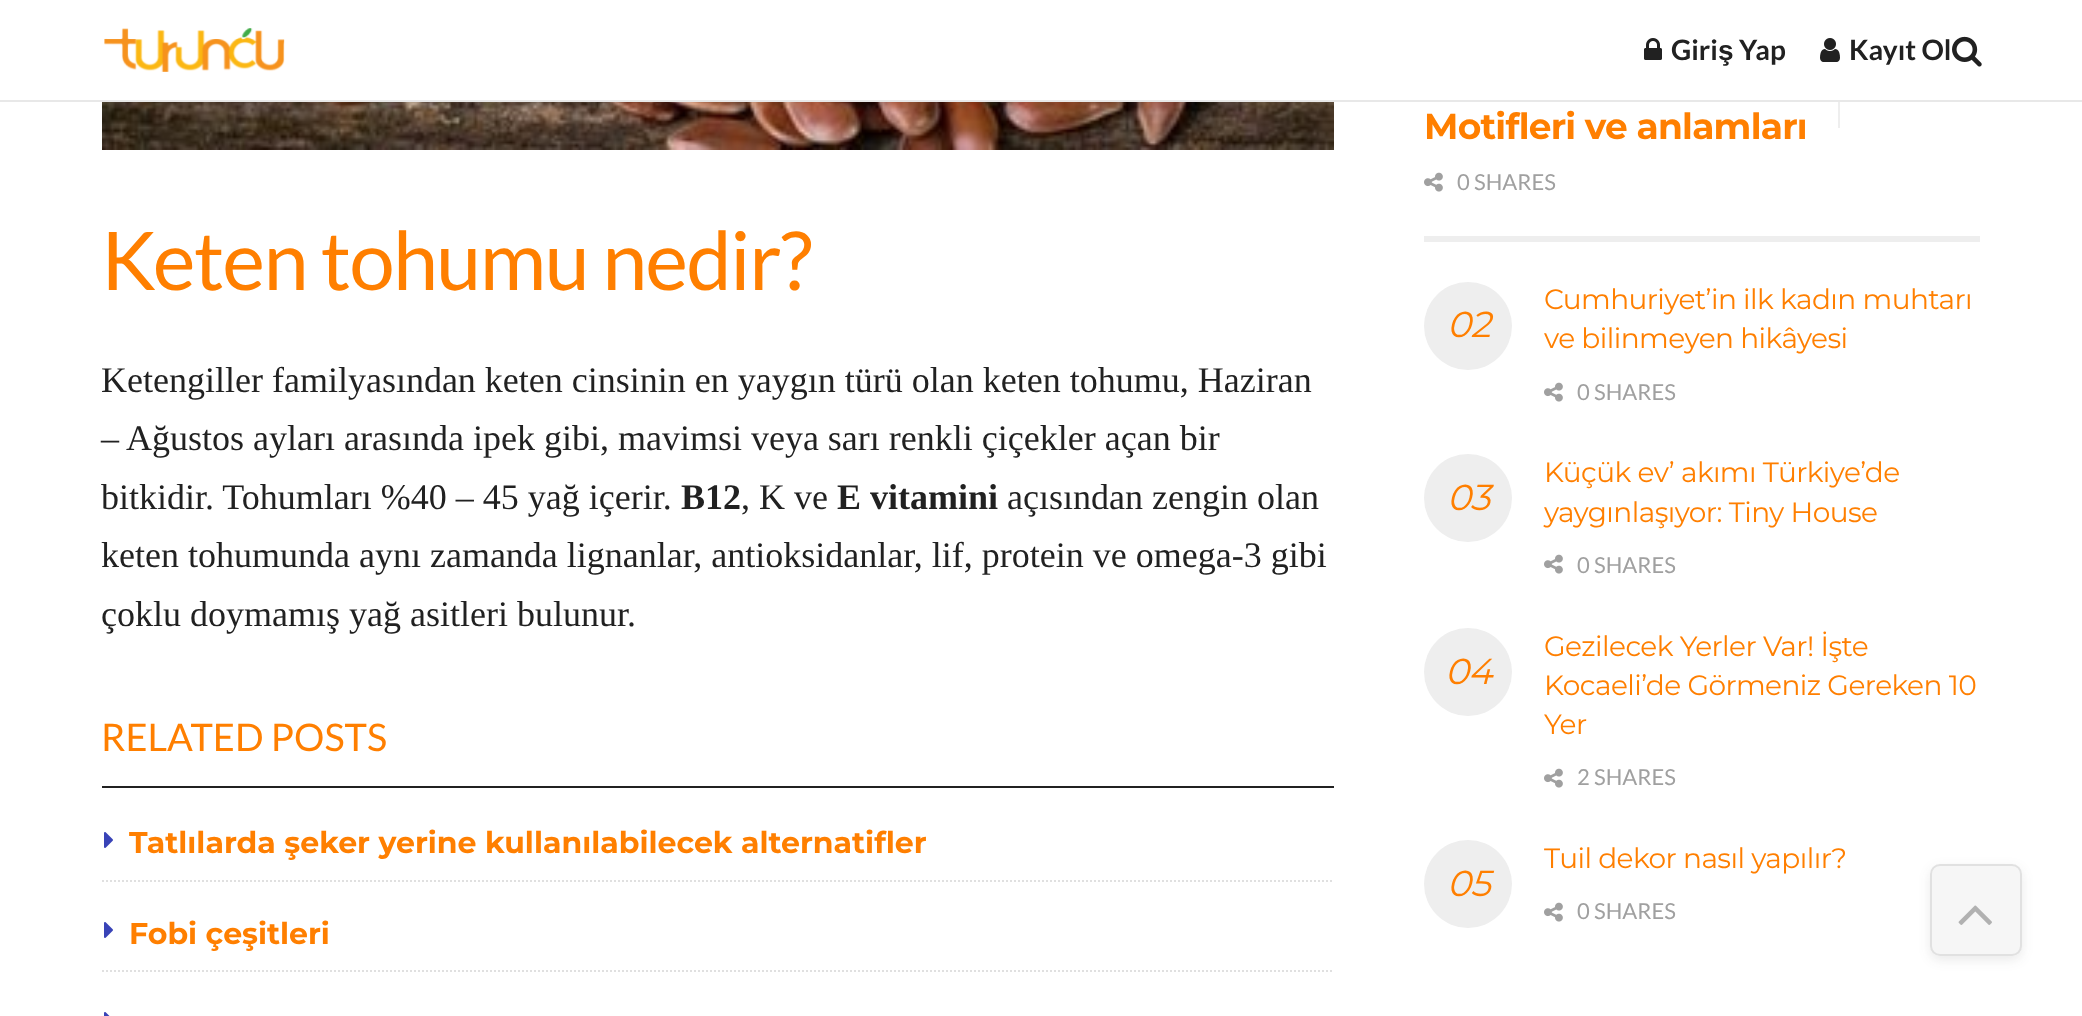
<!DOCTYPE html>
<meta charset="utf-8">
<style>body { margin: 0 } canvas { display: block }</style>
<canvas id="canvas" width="2082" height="1016"></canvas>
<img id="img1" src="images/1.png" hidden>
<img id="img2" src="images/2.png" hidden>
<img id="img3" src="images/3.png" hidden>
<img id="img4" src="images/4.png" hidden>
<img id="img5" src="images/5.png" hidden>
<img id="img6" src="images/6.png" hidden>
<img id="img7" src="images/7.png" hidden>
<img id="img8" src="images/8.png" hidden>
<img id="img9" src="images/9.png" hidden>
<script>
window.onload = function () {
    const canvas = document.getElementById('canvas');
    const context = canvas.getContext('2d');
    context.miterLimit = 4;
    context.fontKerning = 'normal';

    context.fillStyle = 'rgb(255, 255, 255)';
    context.fillRect(0, 0, 2082, 1016);
    context.fillStyle = 'rgb(232, 232, 232)';
    context.fillRect(0, 100, 2082, 2);
    context.drawImage(document.getElementById('img1'), 104, 28, 181, 44);
    context.drawImage(document.getElementById('img2'), 1644, 38, 18, 22);
    context.drawImage(document.getElementById('img3'), 1820, 38, 20, 24);
    context.drawImage(document.getElementById('img4'), 1952, 36, 30, 31);
    context.drawImage(document.getElementById('img5'), 102, 102, 1232, 48);
    context.fillStyle = 'rgb(33, 33, 33)';
    context.fillRect(102, 786, 1232, 2);
    context.beginPath();
    context.moveTo(102, 881);
    context.lineTo(1334, 881);
    context.strokeStyle = 'rgb(224, 224, 224)';
    context.lineWidth = 2;
    context.setLineDash([2, 2]);
    context.stroke();
    context.drawImage(document.getElementById('img6'), 104, 832, 9, 16);
    context.beginPath();
    context.moveTo(102, 971);
    context.lineTo(1334, 971);
    context.stroke();
    context.drawImage(document.getElementById('img6'), 104, 922, 9, 16);
    context.drawImage(document.getElementById('img7'), 104, 1012, 6, 4);
    context.fillStyle = 'rgb(238, 238, 238)';
    context.fillRect(1424, 236, 556, 6);
    context.fillRect(1838, 102, 2, 26);
    context.drawImage(document.getElementById('img8'), 1424, 172, 19, 20);
    context.beginPath();
    context.arc(1468, 326, 44, 0, 2 * Math.PI);
    context.fill();
    context.drawImage(document.getElementById('img8'), 1544, 382, 19, 20);
    context.beginPath();
    context.arc(1468, 498, 44, 0, 2 * Math.PI);
    context.fill();
    context.drawImage(document.getElementById('img8'), 1544, 554, 19, 20);
    context.beginPath();
    context.arc(1468, 672, 44, 0, 2 * Math.PI);
    context.fill();
    context.drawImage(document.getElementById('img8'), 1544, 768, 19, 20);
    context.beginPath();
    context.arc(1468, 884, 44, 0, 2 * Math.PI);
    context.fill();
    context.drawImage(document.getElementById('img8'), 1544, 902, 19, 20);
    context.save();
    context.beginPath();
    context.moveTo(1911, 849);
    context.lineTo(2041, 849);
    context.lineTo(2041, 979);
    context.lineTo(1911, 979);
    context.closePath();
    context.moveTo(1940, 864);
    context.lineTo(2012, 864);
    context.bezierCurveTo(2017.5, 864, 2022, 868.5, 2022, 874);
    context.lineTo(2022, 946);
    context.bezierCurveTo(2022, 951.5, 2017.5, 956, 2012, 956);
    context.lineTo(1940, 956);
    context.bezierCurveTo(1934.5, 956, 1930, 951.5, 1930, 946);
    context.lineTo(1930, 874);
    context.bezierCurveTo(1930, 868.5, 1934.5, 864, 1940, 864);
    context.closePath();
    context.clip('evenodd');
    context.fillStyle = 'rgba(51, 51, 51, 0.1)';
    context.filter = 'blur(6px)';
    context.beginPath();
    context.roundRect(1930, 868, 92, 92, 10);
    context.fill();
    context.filter = 'none';
    context.restore();
    context.fillStyle = 'rgba(196, 196, 196, 0.15)';
    context.beginPath();
    context.roundRect(1930, 864, 92, 92, 10);
    context.fill();
    context.beginPath();
    context.roundRect(1931, 865, 90, 90, 9);
    context.strokeStyle = 'rgba(51, 51, 51, 0.11)';
    context.setLineDash([]);
    context.stroke();
    context.drawImage(document.getElementById('img9'), 1958, 905, 34, 20);
    context.font = 'bold 28px Lato';
    context.fillStyle = 'rgb(33, 33, 33)';
    context.fillText('Giri', 1671, 60);
    context.font = 'bold 28px Liberation Sans';
    context.fillText('ş', 1718, 60);
    context.font = 'bold 28px Lato';
    context.fillText('Yap', 1739, 60);
    context.fillText('Kayıt Ol', 1849, 60);
    context.letterSpacing = '-1.6px';
    context.font = '81px Lato';
    context.fillStyle = 'rgb(255, 127, 0)';
    context.fillText('Keten tohumu nedir?', 101, 290);
    context.letterSpacing = '0px';
    context.font = '36px Liberation Serif';
    context.fillStyle = 'rgb(33, 33, 33)';
    context.fillText('Ketengiller familyasından keten cinsinin en yaygın türü olan keten tohumu, Haziran', 101, 392);
    context.fillText('– Ağustos ayları arasında ipek gibi, mavimsi veya sarı renkli çiçekler açan bir', 101, 450);
    context.fillText('bitkidir. Tohumları %40 – 45 yağ içerir.', 101, 509);
    context.font = 'bold 36px Liberation Serif';
    context.fillText('B12', 681, 509);
    context.font = '36px Liberation Serif';
    context.fillText(', K ve', 741, 509);
    context.font = 'bold 36px Liberation Serif';
    context.fillText('E vitamini', 837, 509);
    context.font = '36px Liberation Serif';
    context.fillText('açısından zengin olan', 1007, 509);
    context.fillText('keten tohumunda aynı zamanda lignanlar, antioksidanlar, lif, protein ve omega-3 gibi', 101, 567);
    context.fillText('çoklu doymamış yağ asitleri bulunur.', 101, 626);
    context.font = '38px Lato';
    context.fillStyle = 'rgb(255, 127, 0)';
    context.fillText('RELATED POSTS', 101, 751);
    context.font = 'bold 30px Montserrat';
    context.fillText('Tatlılarda şeker yerine kullanılabilecek alternatifler', 129, 853);
    context.fillText('Fobi çeşitleri', 129, 944);
    context.letterSpacing = '-0.75px';
    context.font = 'bold 36px Montserrat';
    context.fillText('Motifleri ve anlamları', 1424, 139);
    context.letterSpacing = '0px';
    context.font = '22px Lato';
    context.fillStyle = 'rgb(160, 160, 160)';
    context.fillText('0 SHARES', 1457, 190);
    context.letterSpacing = '-0.55px';
    context.font = '28px Montserrat';
    context.fillStyle = 'rgb(255, 127, 0)';
    context.fillText('Cumhuriyet’in ilk kadın muhtarı', 1544, 309);
    context.font = 'italic 36px Montserrat';
    context.fillText('02', 1447, 337);
    context.font = '28px Montserrat';
    context.fillText('ve bilinmeyen hikâyesi', 1544, 348);
    context.letterSpacing = '0px';
    context.font = '22px Lato';
    context.fillStyle = 'rgb(160, 160, 160)';
    context.fillText('0 SHARES', 1577, 400);
    context.letterSpacing = '-0.55px';
    context.font = '28px Montserrat';
    context.fillStyle = 'rgb(255, 127, 0)';
    context.fillText('Küçük ev’ akımı Türkiye’de', 1544, 482);
    context.font = 'italic 36px Montserrat';
    context.fillText('03', 1447, 510);
    context.font = '28px Montserrat';
    context.fillText('yaygınlaşıyor: Tiny House', 1544, 522);
    context.letterSpacing = '0px';
    context.font = '22px Lato';
    context.fillStyle = 'rgb(160, 160, 160)';
    context.fillText('0 SHARES', 1577, 573);
    context.letterSpacing = '-0.55px';
    context.font = '28px Montserrat';
    context.fillStyle = 'rgb(255, 127, 0)';
    context.fillText('Gezilecek Yerler Var! İşte', 1544, 656);
    context.font = 'italic 36px Montserrat';
    context.fillText('04', 1445, 684);
    context.font = '28px Montserrat';
    context.fillText('Kocaeli’de Görmeniz Gereken 10', 1544, 695);
    context.fillText('Yer', 1544, 734);
    context.letterSpacing = '0px';
    context.font = '22px Lato';
    context.fillStyle = 'rgb(160, 160, 160)';
    context.fillText('2 SHARES', 1577, 785);
    context.letterSpacing = '-0.55px';
    context.font = '28px Montserrat';
    context.fillStyle = 'rgb(255, 127, 0)';
    context.fillText('Tuil dekor nasıl yapılır?', 1544, 868);
    context.font = 'italic 36px Montserrat';
    context.fillText('05', 1447, 896);
    context.letterSpacing = '0px';
    context.font = '22px Lato';
    context.fillStyle = 'rgb(160, 160, 160)';
    context.fillText('0 SHARES', 1577, 919);
};
</script>
